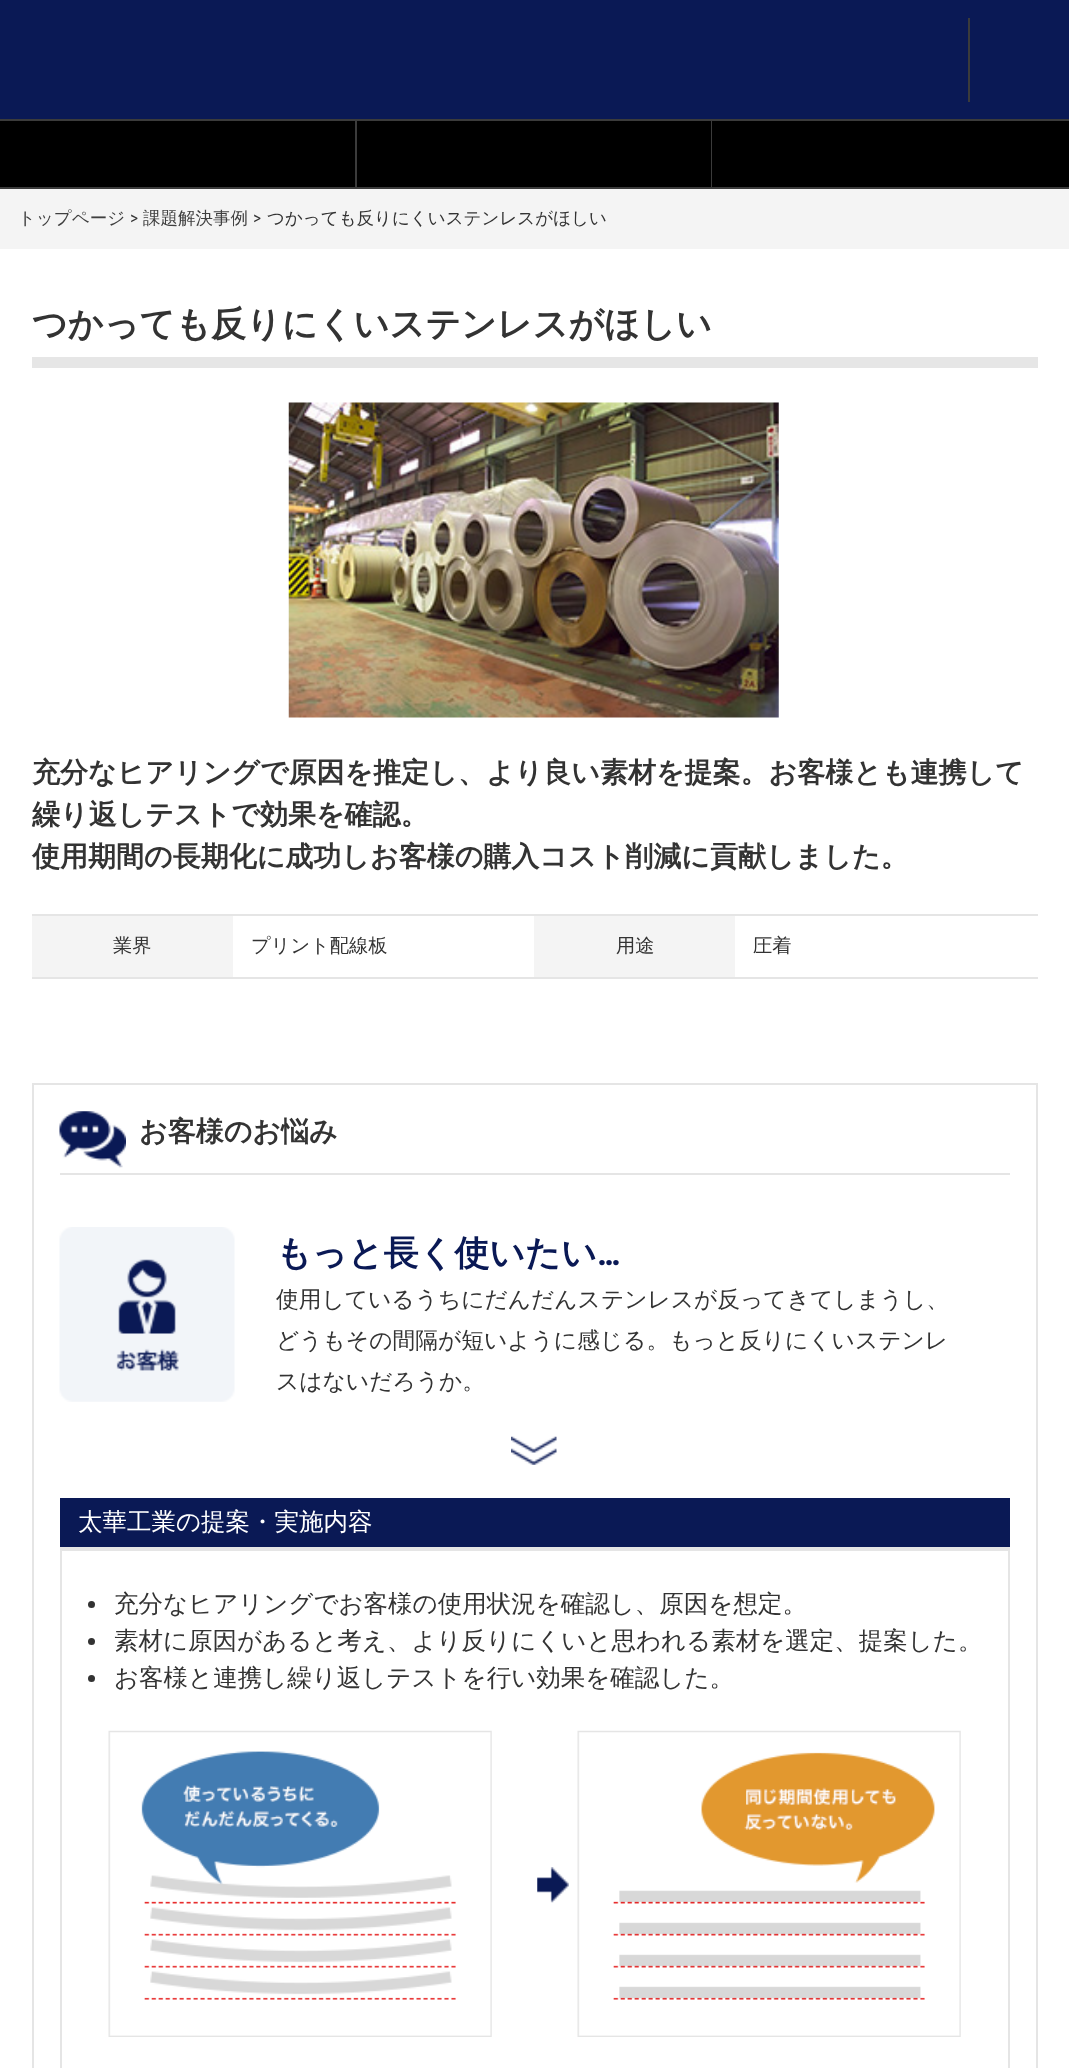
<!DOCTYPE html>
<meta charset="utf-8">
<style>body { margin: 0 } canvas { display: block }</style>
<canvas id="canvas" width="1069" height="2068"></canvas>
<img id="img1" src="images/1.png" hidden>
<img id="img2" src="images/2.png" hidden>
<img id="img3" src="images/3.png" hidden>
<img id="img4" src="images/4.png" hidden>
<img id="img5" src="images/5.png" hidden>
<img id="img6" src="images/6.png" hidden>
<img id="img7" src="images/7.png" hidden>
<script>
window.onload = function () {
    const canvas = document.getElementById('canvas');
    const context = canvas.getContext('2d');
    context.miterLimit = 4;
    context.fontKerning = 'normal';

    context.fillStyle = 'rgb(255, 255, 255)';
    context.fillRect(0, 0, 1069, 2068);
    context.fillStyle = 'rgb(10, 25, 85)';
    context.fillRect(0, 0, 1069, 119);
    context.fillStyle = 'rgb(59, 59, 59)';
    context.fillRect(0, 187, 1069, 2);
    context.fillRect(968, 18, 2, 84);
    context.fillRect(0, 119, 1069, 2);
    context.fillStyle = 'rgb(0, 0, 0)';
    context.fillRect(0, 121, 355, 66);
    context.fillStyle = 'rgb(59, 59, 59)';
    context.fillRect(355, 121, 2, 66);
    context.fillStyle = 'rgb(0, 0, 0)';
    context.fillRect(357, 121, 354, 66);
    context.fillStyle = 'rgb(59, 59, 59)';
    context.fillRect(711, 121, 1, 66);
    context.fillStyle = 'rgb(0, 0, 0)';
    context.fillRect(712, 121, 357, 66);
    context.fillStyle = 'rgb(244, 244, 244)';
    context.fillRect(0, 189, 1069, 60);
    context.fillStyle = 'rgb(230, 230, 230)';
    context.fillRect(32, 357, 1006, 11);
    context.drawImage(document.getElementById('img1'), 288, 402, 491, 316);
    context.fillStyle = 'rgb(229, 229, 229)';
    context.fillRect(32, 914, 1006, 2);
    context.fillStyle = 'rgb(244, 244, 244)';
    context.fillRect(32, 916, 201, 61);
    context.fillRect(534, 916, 201, 61);
    context.fillStyle = 'rgb(229, 229, 229)';
    context.fillRect(32, 977, 1006, 2);
    context.strokeStyle = 'rgb(229, 229, 229)';
    context.lineWidth = 2;
    context.strokeRect(33, 1084, 1004, 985);
    context.drawImage(document.getElementById('img2'), 59, 1111, 67, 57);
    context.fillRect(60, 1173, 950, 2);
    context.drawImage(document.getElementById('img3'), 59, 1227, 176, 175);
    context.drawImage(document.getElementById('img4'), 511, 1436, 46, 29);
    context.fillStyle = 'rgb(10, 25, 85)';
    context.fillRect(60, 1498, 950, 49);
    context.fillStyle = 'rgb(229, 229, 229)';
    context.fillRect(60, 1547, 950, 2);
    context.strokeRect(61, 1550, 948, 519);
    context.fillStyle = 'rgb(51, 51, 51)';
    context.beginPath();
    context.arc(91.5, 1604.5, 3.5, 0, 2 * Math.PI);
    context.fill();
    context.beginPath();
    context.arc(91.5, 1641.5, 3.5, 0, 2 * Math.PI);
    context.fill();
    context.beginPath();
    context.arc(91.5, 1678.5, 3.5, 0, 2 * Math.PI);
    context.fill();
    context.drawImage(document.getElementById('img5'), 537, 1867, 32, 36);
    context.drawImage(document.getElementById('img6'), 108, 1730, 384, 307);
    context.drawImage(document.getElementById('img7'), 577, 1730, 384, 307);
    context.font = '500 17.5px WenQuanYi Zen Hei';
    context.fillStyle = 'rgb(63, 63, 63)';
    context.fillText('トップページ', 18, 224);
    context.font = '17.5px Roboto Condensed';
    context.fillStyle = 'rgb(51, 51, 51)';
    context.fillText('>', 130, 224);
    context.font = '500 17.5px WenQuanYi Zen Hei';
    context.fillStyle = 'rgb(63, 63, 63)';
    context.fillText('課題解決事例', 143, 224);
    context.font = '17.5px Roboto Condensed';
    context.fillStyle = 'rgb(51, 51, 51)';
    context.fillText('>', 253, 224);
    context.font = '500 17.5px WenQuanYi Zen Hei';
    context.fillText('つかっても反りにくいステンレスがほしい', 267, 224);
    context.font = 'bold 35px WenQuanYi Zen Hei';
    context.fillText('つかっても反りにくいステンレスがほしい', 32, 336);
    context.font = 'bold 28px WenQuanYi Zen Hei';
    context.fillText('充分なヒアリングで原因を推定し、より良い素材を提案。お客様とも連携して', 32, 782);
    context.fillText('繰り返しテストで効果を確認。', 32, 824);
    context.fillText('使用期間の長期化に成功しお客様の購入コスト削減に貢献しました。', 32, 866);
    context.font = '500 19.25px WenQuanYi Zen Hei';
    context.fillText('業界', 113, 952);
    context.fillText('プリント配線板', 251, 952);
    context.fillText('用途', 616, 952);
    context.fillText('圧着', 753, 952);
    context.font = 'bold 28px WenQuanYi Zen Hei';
    context.fillText('お客様のお悩み', 139, 1141);
    context.font = 'bold 35px WenQuanYi Zen Hei';
    context.fillStyle = 'rgb(10, 25, 85)';
    context.fillText('もっと長く使いたい', 276, 1265);
    context.font = 'bold 35px Roboto Condensed';
    context.fillText('…', 597, 1265);
    context.font = '500 22.75px WenQuanYi Zen Hei';
    context.fillStyle = 'rgb(51, 51, 51)';
    context.fillText('使用しているうちにだんだんステンレスが反ってきてしまうし、', 276, 1307);
    context.fillText('どうもその間隔が短いように感じる。もっと反りにくいステンレ', 276, 1348);
    context.fillText('スはないだろうか。', 276, 1389);
    context.font = '500 24.5px WenQuanYi Zen Hei';
    context.fillStyle = 'rgb(255, 255, 255)';
    context.fillText('太華工業の提案・実施内容', 78, 1530);
    context.fillStyle = 'rgb(51, 51, 51)';
    context.fillText('充分なヒアリングでお客様の使用状況を確認し、原因を想定。', 114, 1612);
    context.fillText('素材に原因があると考え、より反りにくいと思われる素材を選定、提案した。', 114, 1649);
    context.fillText('お客様と連携し繰り返しテストを行い効果を確認した。', 114, 1686);
};
</script>
